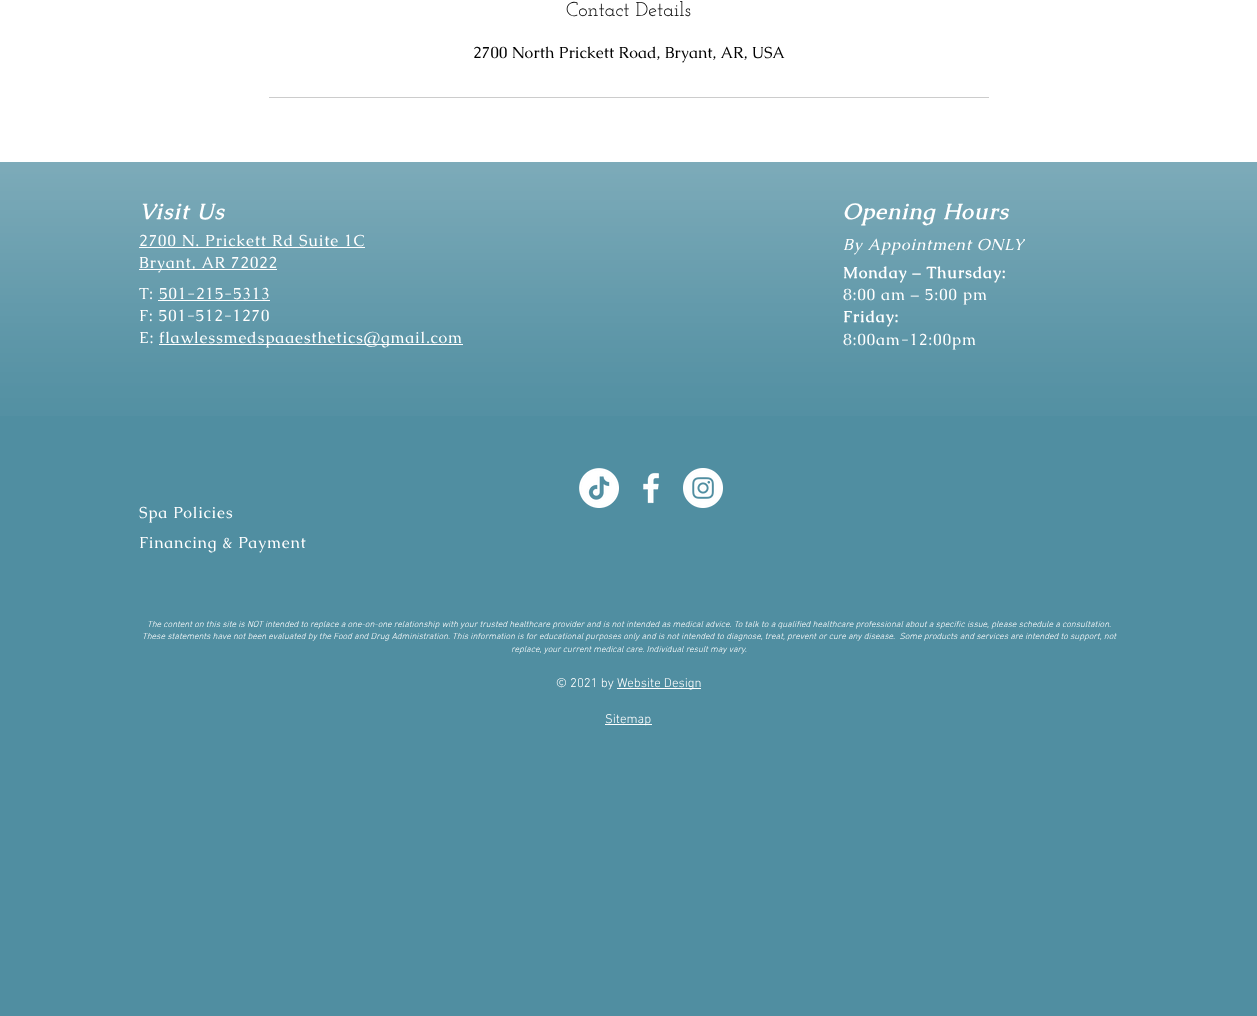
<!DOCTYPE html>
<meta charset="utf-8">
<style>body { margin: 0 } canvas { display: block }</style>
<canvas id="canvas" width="1257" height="1016"></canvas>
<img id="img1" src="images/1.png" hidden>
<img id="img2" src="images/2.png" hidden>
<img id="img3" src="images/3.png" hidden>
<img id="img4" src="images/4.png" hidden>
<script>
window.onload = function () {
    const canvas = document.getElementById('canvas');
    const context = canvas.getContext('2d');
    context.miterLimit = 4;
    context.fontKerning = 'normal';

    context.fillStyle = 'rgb(255, 255, 255)';
    context.fillRect(0, 0, 1257, 1016);
    context.fillStyle = 'rgb(204, 204, 204)';
    context.fillRect(269, 97, 720, 1);
    context.fillStyle = 'rgb(80, 142, 161)';
    context.fillRect(0, 162, 1257, 854);
    context.drawImage(document.getElementById('img1'), 0, 162, 1257, 254);
    context.fillStyle = 'rgb(255, 255, 255)';
    context.fillRect(139, 247, 226, 1);
    context.fillRect(139, 269, 138, 1);
    context.fillRect(158, 300, 112, 1);
    context.fillRect(159, 344, 304, 1);
    context.drawImage(document.getElementById('img2'), 579, 468, 40, 40);
    context.drawImage(document.getElementById('img3'), 643, 472, 17, 32);
    context.drawImage(document.getElementById('img4'), 683, 468, 40, 40);
    context.fillRect(617, 688, 84, 1);
    context.fillRect(605, 724, 47, 1);
    context.font = '20px Josefin Slab';
    context.fillStyle = 'rgb(0, 0, 0)';
    context.fillText('Contact Details', 566, 16);
    context.font = '16px Caudex';
    context.fillText('2700 North Prickett Road, Bryant, AR, USA', 473, 58);
    context.letterSpacing = '1.1px';
    context.font = 'italic bold 22px Caudex';
    context.fillStyle = 'rgb(255, 255, 255)';
    context.fillText('Visit Us', 139, 219);
    context.letterSpacing = '0.8px';
    context.font = '16px Caudex';
    context.fillText('2700 N. Prickett Rd Suite 1C', 139, 246);
    context.fillText('Bryant, AR 72022', 139, 268);
    context.fillText('T: 501-215-5313', 139, 299);
    context.fillText('F: 501-512-1270', 139, 321);
    context.fillText('E:', 139, 343);
    context.fillText('flawlessmedspaaesthetics@gmail.com', 159, 343);
    context.letterSpacing = '1.1px';
    context.font = 'italic bold 22px Caudex';
    context.fillText('Opening Hours', 843, 219);
    context.letterSpacing = '0.8px';
    context.font = 'italic 16px Caudex';
    context.fillText('By Appointment ONLY', 843, 250);
    context.font = 'bold 16px Caudex';
    context.fillText('Monday – Thursday:', 843, 278);
    context.font = '16px Caudex';
    context.fillText('8:00 am – 5:00 pm', 843, 300);
    context.font = 'bold 16px Caudex';
    context.fillText('Friday:', 843, 322);
    context.font = '16px Caudex';
    context.fillText('8:00am-12:00pm', 843, 345);
    context.fillText('Spa Policies', 139, 518);
    context.fillText('Financing & Payment', 139, 548);
    context.letterSpacing = '0px';
    context.font = 'italic 300 9px "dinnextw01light"';
    context.fillText('The content on this site is NOT intended to replace a one-on-one relationship with your trusted healthcare provider and is not intended as medical advice. To talk to a qualified healthcare professional about a specific issue, please schedule a consultation.', 147, 627);
    context.fillText('These statements have not been evaluated by the Food and Drug Administration. This information is for educational purposes only and is not intended to diagnose, treat, prevent or cure any disease.  Some products and services are intended to support, not', 142, 639);
    context.fillText('replace, your current medical care. Individual result may vary.', 511, 652);
    context.font = '300 13px "dinnextw01light"';
    context.fillText('© 2021 by', 556, 687);
    context.fillText('Website Design', 617, 687);
    context.fillText('Sitemap', 605, 723);
};
</script>
